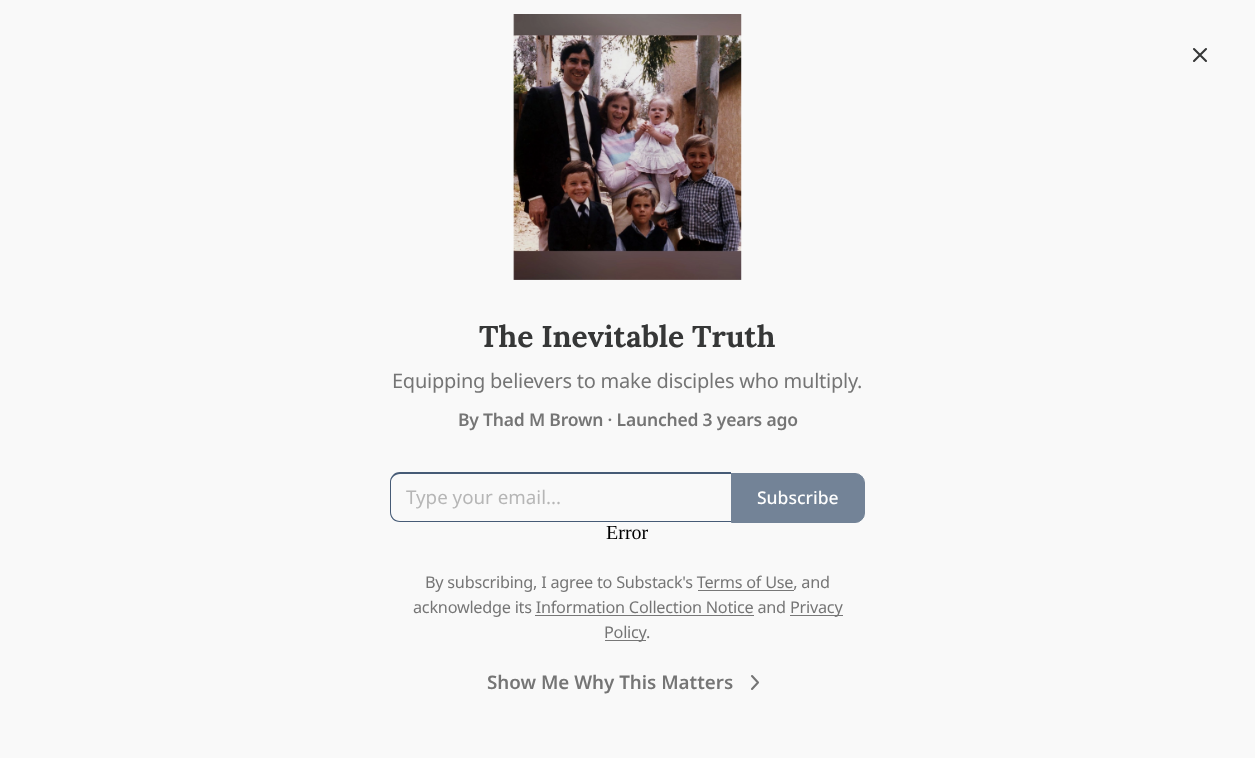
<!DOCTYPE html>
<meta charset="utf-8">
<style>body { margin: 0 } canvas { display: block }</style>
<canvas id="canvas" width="1255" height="758"></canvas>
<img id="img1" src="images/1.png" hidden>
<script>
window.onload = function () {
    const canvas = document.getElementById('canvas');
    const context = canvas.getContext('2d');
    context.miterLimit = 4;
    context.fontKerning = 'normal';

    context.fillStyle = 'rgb(249, 249, 249)';
    context.fillRect(0, 0, 1255, 758);
    context.drawImage(document.getElementById('img1'), 513, 14, 229, 266);
    context.beginPath();
    context.moveTo(1206, 49);
    context.lineTo(1194, 61);
    context.moveTo(1194, 49);
    context.lineTo(1206, 61);
    context.strokeStyle = 'rgb(54, 55, 55)';
    context.lineWidth = 2.1;
    context.lineCap = 'round';
    context.lineJoin = 'round';
    context.stroke();
    context.fillStyle = 'rgb(70, 91, 118)';
    context.beginPath();
    context.moveTo(400, 472);
    context.lineTo(731, 472);
    context.lineTo(731, 522);
    context.lineTo(400, 522);
    context.bezierCurveTo(394, 522, 390, 518, 390, 512);
    context.lineTo(390, 482);
    context.bezierCurveTo(390, 477, 394, 472, 400, 472);
    context.closePath();
    context.moveTo(400, 474);
    context.lineTo(731, 474);
    context.lineTo(731, 521);
    context.lineTo(400, 521);
    context.bezierCurveTo(395, 521, 391, 517, 391, 512);
    context.lineTo(391, 482);
    context.bezierCurveTo(391, 478, 395, 474, 400, 474);
    context.closePath();
    context.fill('evenodd');
    context.fillStyle = 'rgb(115, 131, 151)';
    context.beginPath();
    context.roundRect(731.5, 473.5, 133, 49, [0, 9.5, 9.5, 0]);
    context.fill();
    context.strokeStyle = 'rgb(115, 131, 151)';
    context.lineWidth = 1;
    context.lineJoin = 'miter';
    context.stroke();
    context.fillStyle = 'rgb(119, 119, 119)';
    context.fillRect(790, 615, 53, 1);
    context.fillRect(605, 640, 41, 1);
    context.beginPath();
    context.moveTo(752, 689);
    context.lineTo(758, 682.5);
    context.lineTo(752, 676);
    context.strokeStyle = 'rgb(117, 117, 117)';
    context.lineWidth = 2.1;
    context.lineJoin = 'round';
    context.stroke();
    context.font = 'bold 30px Lora';
    context.fillStyle = 'rgb(54, 55, 55)';
    context.fillText('The Inevitable Truth', 479, 347);
    context.letterSpacing = '-0.25px';
    context.font = '20px Noto Sans';
    context.fillStyle = 'rgb(117, 117, 117)';
    context.fillText('Equipping believers to make disciples who multiply.', 392, 388);
    context.letterSpacing = '-0.2px';
    context.font = '600 17.5px Noto Sans';
    context.fillText('By Thad M Brown · Launched 3 years ago', 458, 426);
    context.letterSpacing = '0px';
    context.font = '18.75px Noto Sans';
    context.fillStyle = 'rgb(182, 182, 182)';
    context.fillText('Type your email...', 406, 504);
    context.font = '500 17.5px Noto Sans';
    context.fillStyle = 'rgb(254, 254, 254)';
    context.fillText('Subscribe', 757, 504);
    context.font = '20px Liberation Serif';
    context.fillStyle = 'rgb(0, 0, 0)';
    context.fillText('Error', 606, 539);
    context.letterSpacing = '-0.25px';
    context.font = '16.25px Noto Sans';
    context.fillStyle = 'rgb(117, 117, 117)';
    context.fillText('By subscribing, I agree to Substack\'s Terms of Use, and', 425, 588);
    context.fillStyle = 'rgb(119, 119, 119)';
    context.fillRect(698, 590, 96, 1);
    context.fillStyle = 'rgb(117, 117, 117)';
    context.fillText('acknowledge its Information Collection Notice and', 413, 613);
    context.fillText('Privacy', 790, 613);
    context.fillStyle = 'rgb(119, 119, 119)';
    context.fillRect(535, 615, 219, 1);
    context.fillStyle = 'rgb(117, 117, 117)';
    context.fillText('Policy', 604, 638);
    context.fillText('.', 646, 638);
    context.letterSpacing = '0px';
    context.font = '600 18.75px Noto Sans';
    context.fillText('Show Me Why This Matters', 487, 689);
};
</script>
